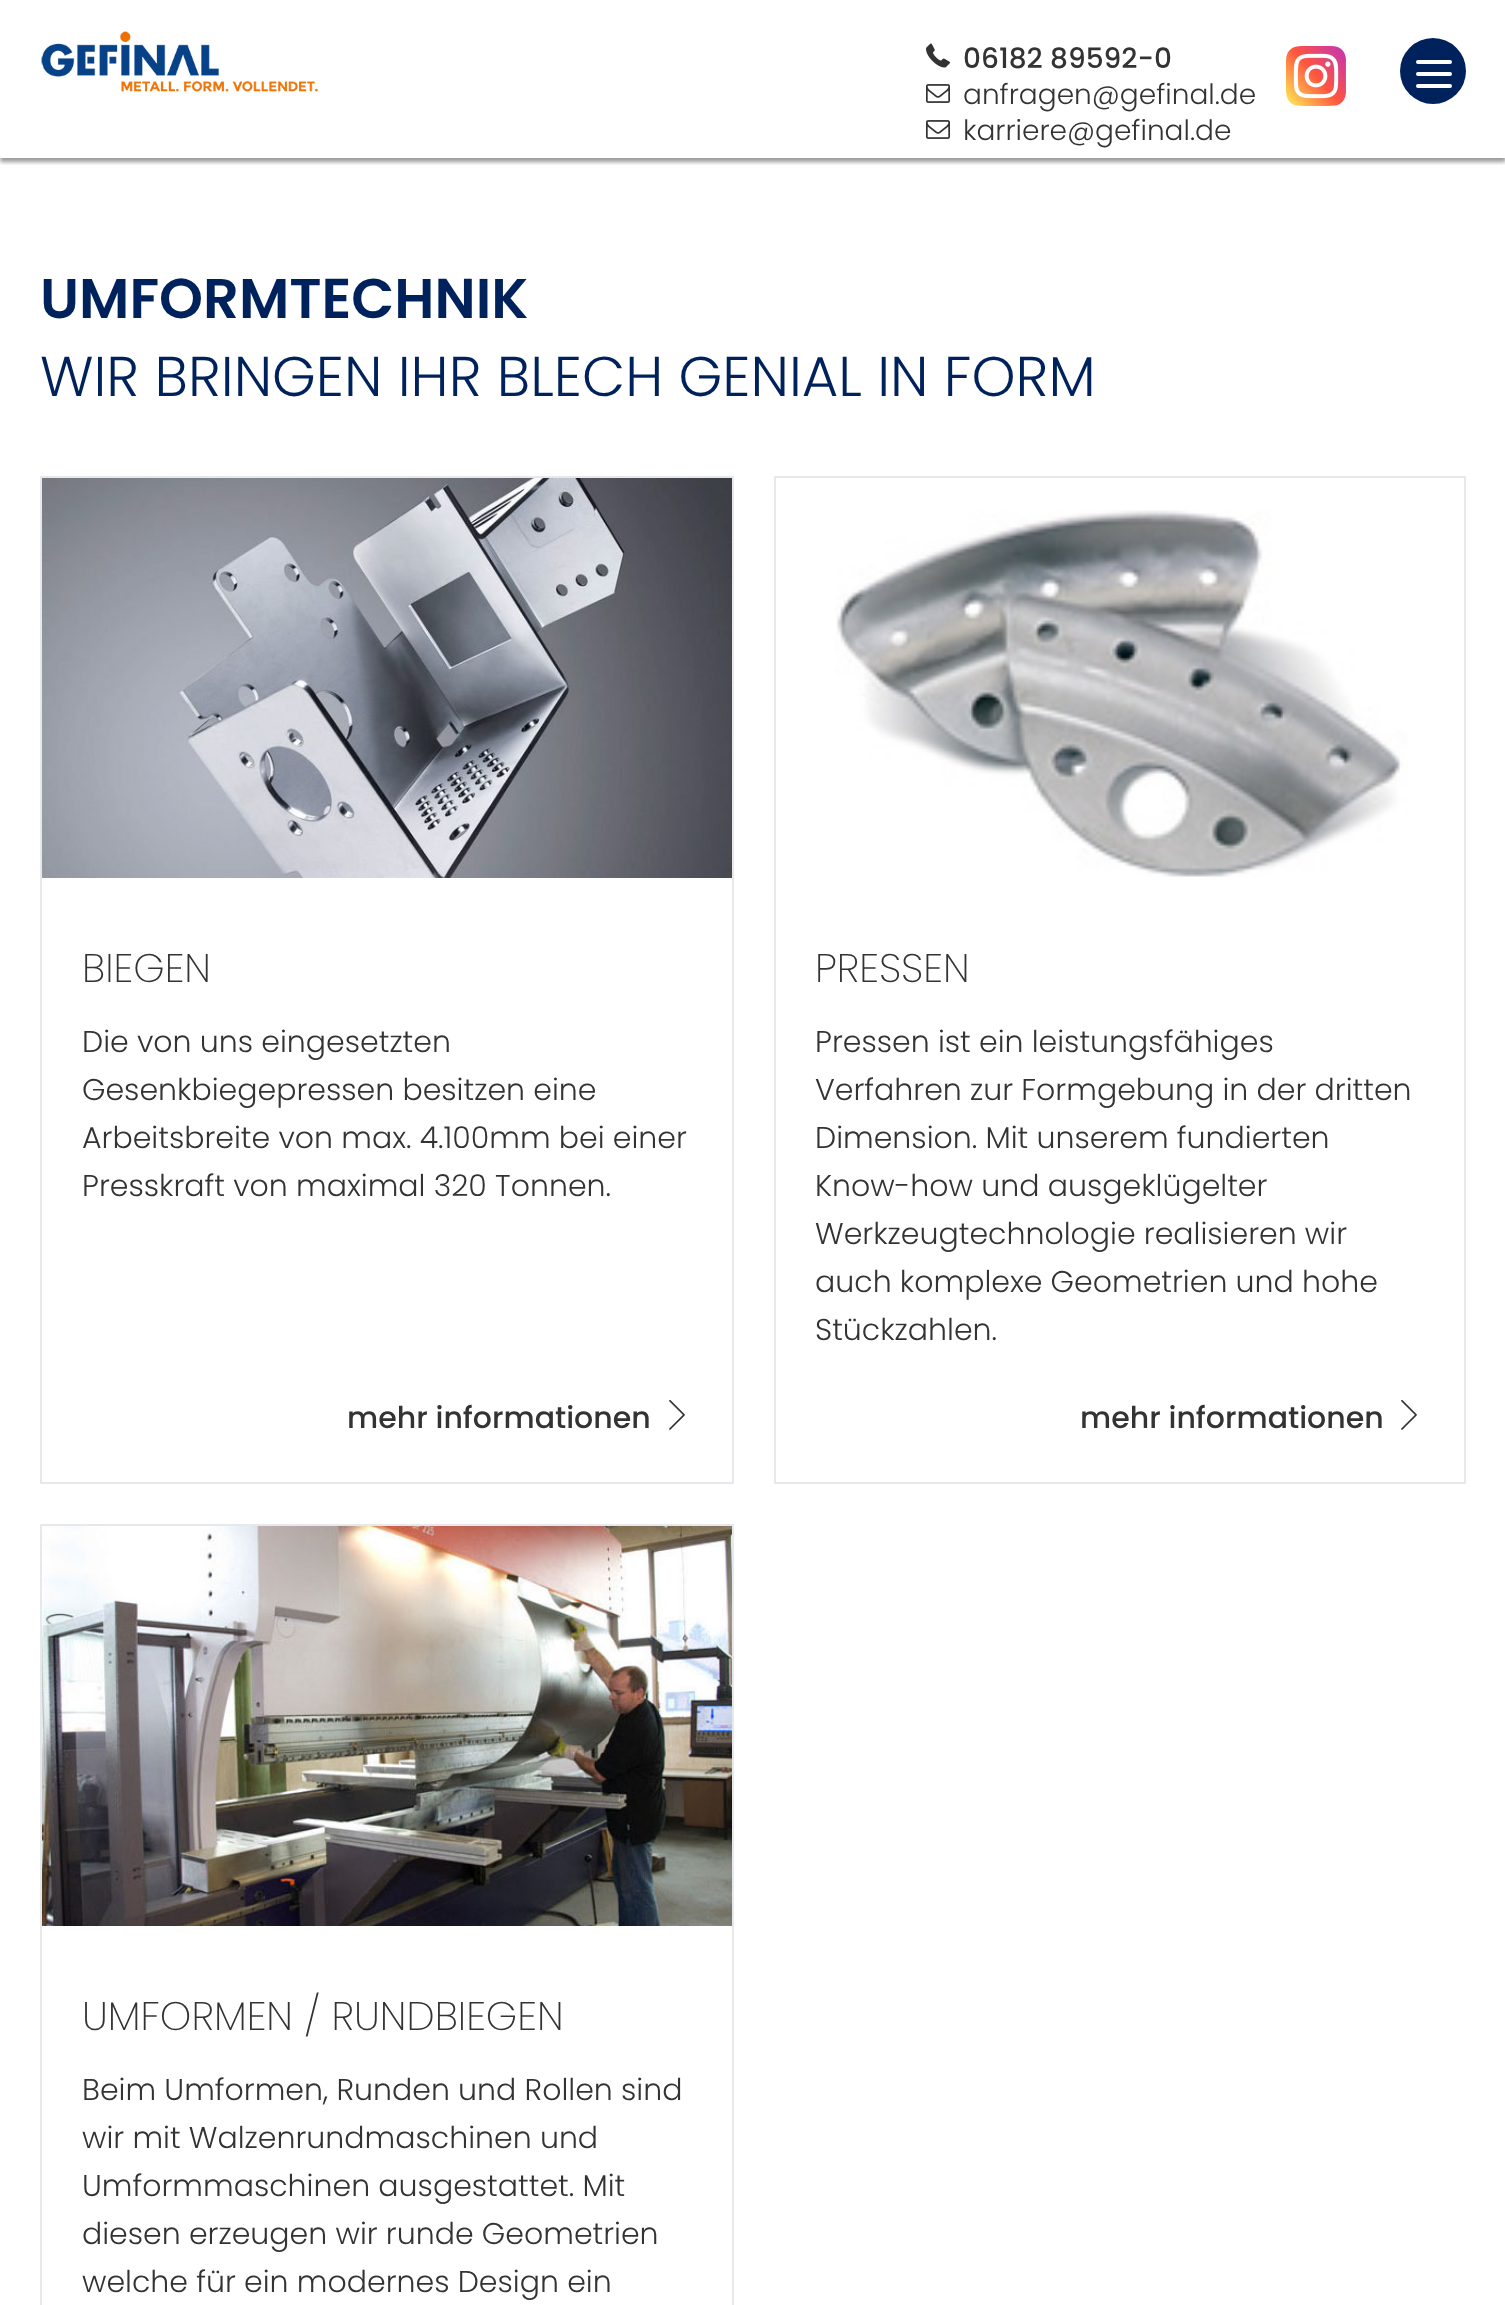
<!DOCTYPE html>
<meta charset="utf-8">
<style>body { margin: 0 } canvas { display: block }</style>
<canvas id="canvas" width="1505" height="2305"></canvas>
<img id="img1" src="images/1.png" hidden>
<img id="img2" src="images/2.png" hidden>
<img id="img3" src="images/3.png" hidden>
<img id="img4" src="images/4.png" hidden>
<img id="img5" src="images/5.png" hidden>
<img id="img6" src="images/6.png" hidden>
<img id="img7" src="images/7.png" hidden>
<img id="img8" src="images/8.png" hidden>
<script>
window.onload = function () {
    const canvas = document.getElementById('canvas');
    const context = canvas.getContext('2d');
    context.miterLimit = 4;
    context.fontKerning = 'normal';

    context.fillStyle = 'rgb(255, 255, 255)';
    context.fillRect(0, 0, 1505, 2305);
    context.save();
    context.beginPath();
    context.rect(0, 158, 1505, 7);
    context.clip();
    context.fillStyle = 'rgba(0, 0, 0, 0.4)';
    context.filter = 'blur(2px)';
    context.beginPath();
    context.rect(0, 4, 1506, 158);
    context.fill();
    context.filter = 'none';
    context.restore();
    context.drawImage(document.getElementById('img1'), 41, 31, 277, 61);
    context.drawImage(document.getElementById('img2'), 926, 43, 24, 25);
    context.drawImage(document.getElementById('img3'), 926, 84, 24, 19);
    context.drawImage(document.getElementById('img3'), 926, 120, 24, 19);
    context.drawImage(document.getElementById('img4'), 1286, 46, 60, 60);
    context.fillStyle = 'rgb(0, 34, 92)';
    context.beginPath();
    context.arc(1433, 71, 33, 0, 2 * Math.PI);
    context.fill();
    context.fillStyle = 'rgb(255, 255, 255)';
    context.beginPath();
    context.roundRect(1416, 84, 36, 4, 2);
    context.fill();
    context.beginPath();
    context.roundRect(1416, 60, 36, 4, 2);
    context.fill();
    context.beginPath();
    context.roundRect(1416, 72, 36, 4, 2);
    context.fill();
    context.strokeStyle = 'rgb(230, 232, 236)';
    context.lineWidth = 2;
    context.strokeRect(41, 477, 692, 1006);
    context.drawImage(document.getElementById('img5'), 42, 478, 690, 400);
    context.drawImage(document.getElementById('img6'), 669, 1399, 16, 31);
    context.strokeRect(775, 477, 690, 1006);
    context.drawImage(document.getElementById('img7'), 835, 510, 573, 367);
    context.drawImage(document.getElementById('img6'), 1401, 1399, 16, 31);
    context.strokeRect(41, 1525, 692, 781);
    context.drawImage(document.getElementById('img8'), 42, 1526, 690, 400);
    context.font = '500 28px Poppins';
    context.fillStyle = 'rgb(51, 51, 51)';
    context.fillText('06182 89592-0', 963, 68);
    context.font = '300 28px Poppins';
    context.fillText('anfragen@gefinal.de', 963, 104);
    context.fillText('karriere@gefinal.de', 963, 140);
    context.font = '600 56px Poppins';
    context.fillStyle = 'rgb(0, 34, 92)';
    context.fillText('UMFORMTECHNIK', 40, 318);
    context.font = '300 56px Poppins';
    context.fillText('WIR BRINGEN IHR BLECH GENIAL IN FORM', 40, 396);
    context.font = '200 40px Poppins';
    context.fillStyle = 'rgb(51, 51, 51)';
    context.fillText('BIEGEN', 82, 982);
    context.font = '300 30px Poppins';
    context.fillText('Die von uns eingesetzten', 82, 1052);
    context.fillText('Gesenkbiegepressen besitzen eine', 82, 1100);
    context.fillText('Arbeitsbreite von max. 4.100mm bei einer', 82, 1148);
    context.fillText('Presskraft von maximal 320 Tonnen.', 82, 1196);
    context.font = '500 30px Poppins';
    context.fillText('mehr informationen', 347, 1428);
    context.font = '200 40px Poppins';
    context.fillText('PRESSEN', 815, 982);
    context.font = '300 30px Poppins';
    context.fillText('Pressen ist ein leistungsfähiges', 815, 1052);
    context.fillText('Verfahren zur Formgebung in der dritten', 815, 1100);
    context.fillText('Dimension. Mit unserem fundierten', 815, 1148);
    context.fillText('Know-how und ausgeklügelter', 815, 1196);
    context.fillText('Werkzeugtechnologie realisieren wir', 815, 1244);
    context.fillText('auch komplexe Geometrien und hohe', 815, 1292);
    context.fillText('Stückzahlen.', 815, 1340);
    context.font = '500 30px Poppins';
    context.fillText('mehr informationen', 1080, 1428);
    context.font = '200 40px Poppins';
    context.fillText('UMFORMEN / RUNDBIEGEN', 82, 2030);
    context.font = '300 30px Poppins';
    context.fillText('Beim Umformen, Runden und Rollen sind', 82, 2100);
    context.fillText('wir mit Walzenrundmaschinen und', 82, 2148);
    context.fillText('Umformmaschinen ausgestattet. Mit', 82, 2196);
    context.fillText('diesen erzeugen wir runde Geometrien', 82, 2244);
    context.fillText('welche für ein modernes Design ein', 82, 2292);
};
</script>
